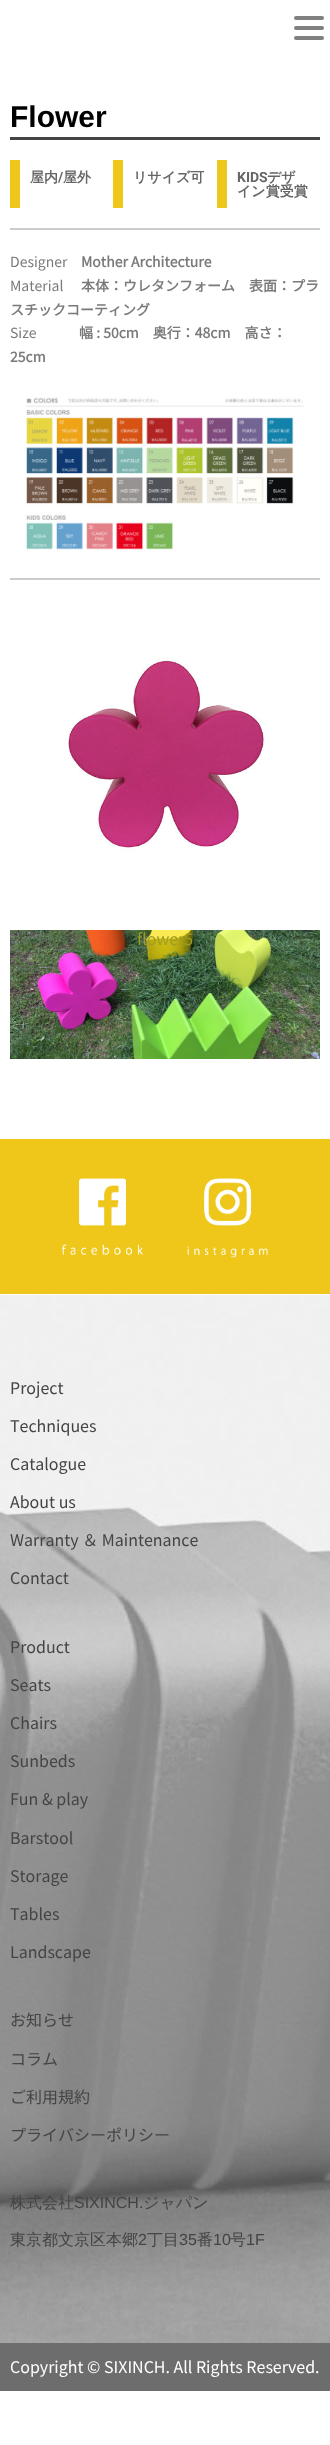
<!DOCTYPE html>
<meta charset="utf-8">
<style>body { margin: 0 } canvas { display: block }</style>
<canvas id="canvas" width="330" height="2445"></canvas>
<img id="img1" src="images/1.png" hidden>
<img id="img2" src="images/2.png" hidden>
<img id="img3" src="images/3.png" hidden>
<img id="img4" src="images/4.png" hidden>
<img id="img5" src="images/5.png" hidden>
<img id="img6" src="images/6.png" hidden>
<script>
window.onload = function () {
    const canvas = document.getElementById('canvas');
    const context = canvas.getContext('2d');
    context.miterLimit = 4;
    context.fontKerning = 'none';

    context.fillStyle = 'rgb(255, 255, 255)';
    context.fillRect(0, 0, 330, 2445);
    context.fillStyle = 'rgb(128, 128, 128)';
    context.beginPath();
    context.roundRect(294, 16, 30, 4, 2);
    context.fill();
    context.beginPath();
    context.roundRect(294, 26, 30, 4, 2);
    context.fill();
    context.beginPath();
    context.roundRect(294, 36, 30, 4, 2);
    context.fill();
    context.fillStyle = 'rgb(68, 68, 68)';
    context.fillRect(10, 137, 310, 3);
    context.fillStyle = 'rgb(239, 199, 27)';
    context.fillRect(10, 160, 10, 48);
    context.fillRect(113, 160, 10, 48);
    context.fillRect(217, 160, 10, 48);
    context.fillStyle = 'rgb(204, 204, 204)';
    context.fillRect(10, 228, 310, 2);
    context.drawImage(document.getElementById('img1'), 24, 397, 280, 153);
    context.fillRect(10, 578, 310, 2);
    context.drawImage(document.getElementById('img2'), 68, 658, 198, 194);
    context.drawImage(document.getElementById('img3'), 10, 930, 310, 129);
    context.fillStyle = 'rgb(239, 199, 27)';
    context.fillRect(0, 1139, 330, 155);
    context.drawImage(document.getElementById('img4'), 61, 1178, 83, 77);
    context.drawImage(document.getElementById('img5'), 187, 1178, 81, 80);
    context.drawImage(document.getElementById('img6'), 0, 1294, 330, 1049);
    context.fillStyle = 'rgb(109, 109, 109)';
    context.fillRect(0, 2343, 330, 48);
    context.font = 'bold 30px Liberation Sans';
    context.fillStyle = 'rgb(0, 0, 0)';
    context.fillText('Flower', 10, 127);
    context.font = 'bold 14px WenQuanYi Zen Hei';
    context.fillStyle = 'rgb(102, 102, 102)';
    context.fillText('屋内', 30, 182);
    context.font = 'bold 14px Roboto';
    context.fillText('/', 58, 182);
    context.font = 'bold 14px WenQuanYi Zen Hei';
    context.fillText('屋外', 63, 182);
    context.fillText('リサイズ可', 133, 182);
    context.font = 'bold 14px Roboto';
    context.fillText('KIDS', 237, 182);
    context.font = 'bold 14px WenQuanYi Zen Hei';
    context.fillText('デザ', 267, 182);
    context.fillText('イン賞受賞', 237, 196);
    context.font = '100 14px Noto Sans JP';
    context.fillStyle = 'rgb(122, 122, 122)';
    context.fillText('Designer', 10, 267);
    context.font = 'bold 14px Noto Sans JP';
    context.fillText('Mother Architecture', 81, 267);
    context.font = '100 14px Noto Sans JP';
    context.fillText('Material', 10, 291);
    context.font = 'bold 14px Noto Sans JP';
    context.fillText('本体：ウレタンフォーム　表面：プラ', 81, 291);
    context.fillText('スチックコーティング', 10, 315);
    context.font = '100 14px Noto Sans JP';
    context.fillText('Size', 10, 338);
    context.font = 'bold 14px Noto Sans JP';
    context.fillText('幅 : 50cm　奥行：48cm　高さ：', 79, 338);
    context.fillText('25cm', 10, 362);
    context.font = '100 16px Noto Sans JP';
    context.fillStyle = 'rgb(160, 157, 37)';
    context.fillText('flower5', 137, 945);
    context.fillStyle = 'rgb(68, 68, 68)';
    context.fillText('Project', 10, 1394);
    context.fillText('Techniques', 10, 1432);
    context.fillText('Catalogue', 10, 1470);
    context.fillText('About us', 10, 1508);
    context.fillText('Warranty ＆ Maintenance', 10, 1546);
    context.fillText('Contact', 10, 1584);
    context.fillText('Product', 10, 1653);
    context.fillText('Seats', 10, 1691);
    context.fillText('Chairs', 10, 1729);
    context.fillText('Sunbeds', 10, 1767);
    context.fillText('Fun & play', 10, 1805);
    context.fillText('Barstool', 10, 1844);
    context.fillText('Storage', 10, 1882);
    context.fillText('Tables', 10, 1920);
    context.fillText('Landscape', 10, 1958);
    context.fillText('お知らせ', 10, 2026);
    context.fillText('コラム', 10, 2065);
    context.fillText('ご利用規約', 10, 2103);
    context.fillText('プライバシーポリシー', 10, 2141);
    context.font = '500 16px WenQuanYi Zen Hei';
    context.fillText('株式会社', 10, 2208);
    context.font = '16px Liberation Sans';
    context.fillText('SIXINCH.', 74, 2208);
    context.font = '500 16px WenQuanYi Zen Hei';
    context.fillText('ジャパン', 143, 2208);
    context.fillText('東京都文京区本郷', 10, 2245);
    context.font = '16px Liberation Sans';
    context.fillText('2', 138, 2245);
    context.font = '500 16px WenQuanYi Zen Hei';
    context.fillText('丁目', 147, 2245);
    context.font = '16px Liberation Sans';
    context.fillText('35', 179, 2245);
    context.font = '500 16px WenQuanYi Zen Hei';
    context.fillText('番', 197, 2245);
    context.font = '16px Liberation Sans';
    context.fillText('10', 213, 2245);
    context.font = '500 16px WenQuanYi Zen Hei';
    context.fillText('号', 230, 2245);
    context.font = '16px Liberation Sans';
    context.fillText('1F', 246, 2245);
    context.font = '100 16px Noto Sans JP';
    context.fillStyle = 'rgb(255, 255, 255)';
    context.fillText('Copyright © SIXINCH. All Rights Reserved.', 10, 2373);
};
</script>
